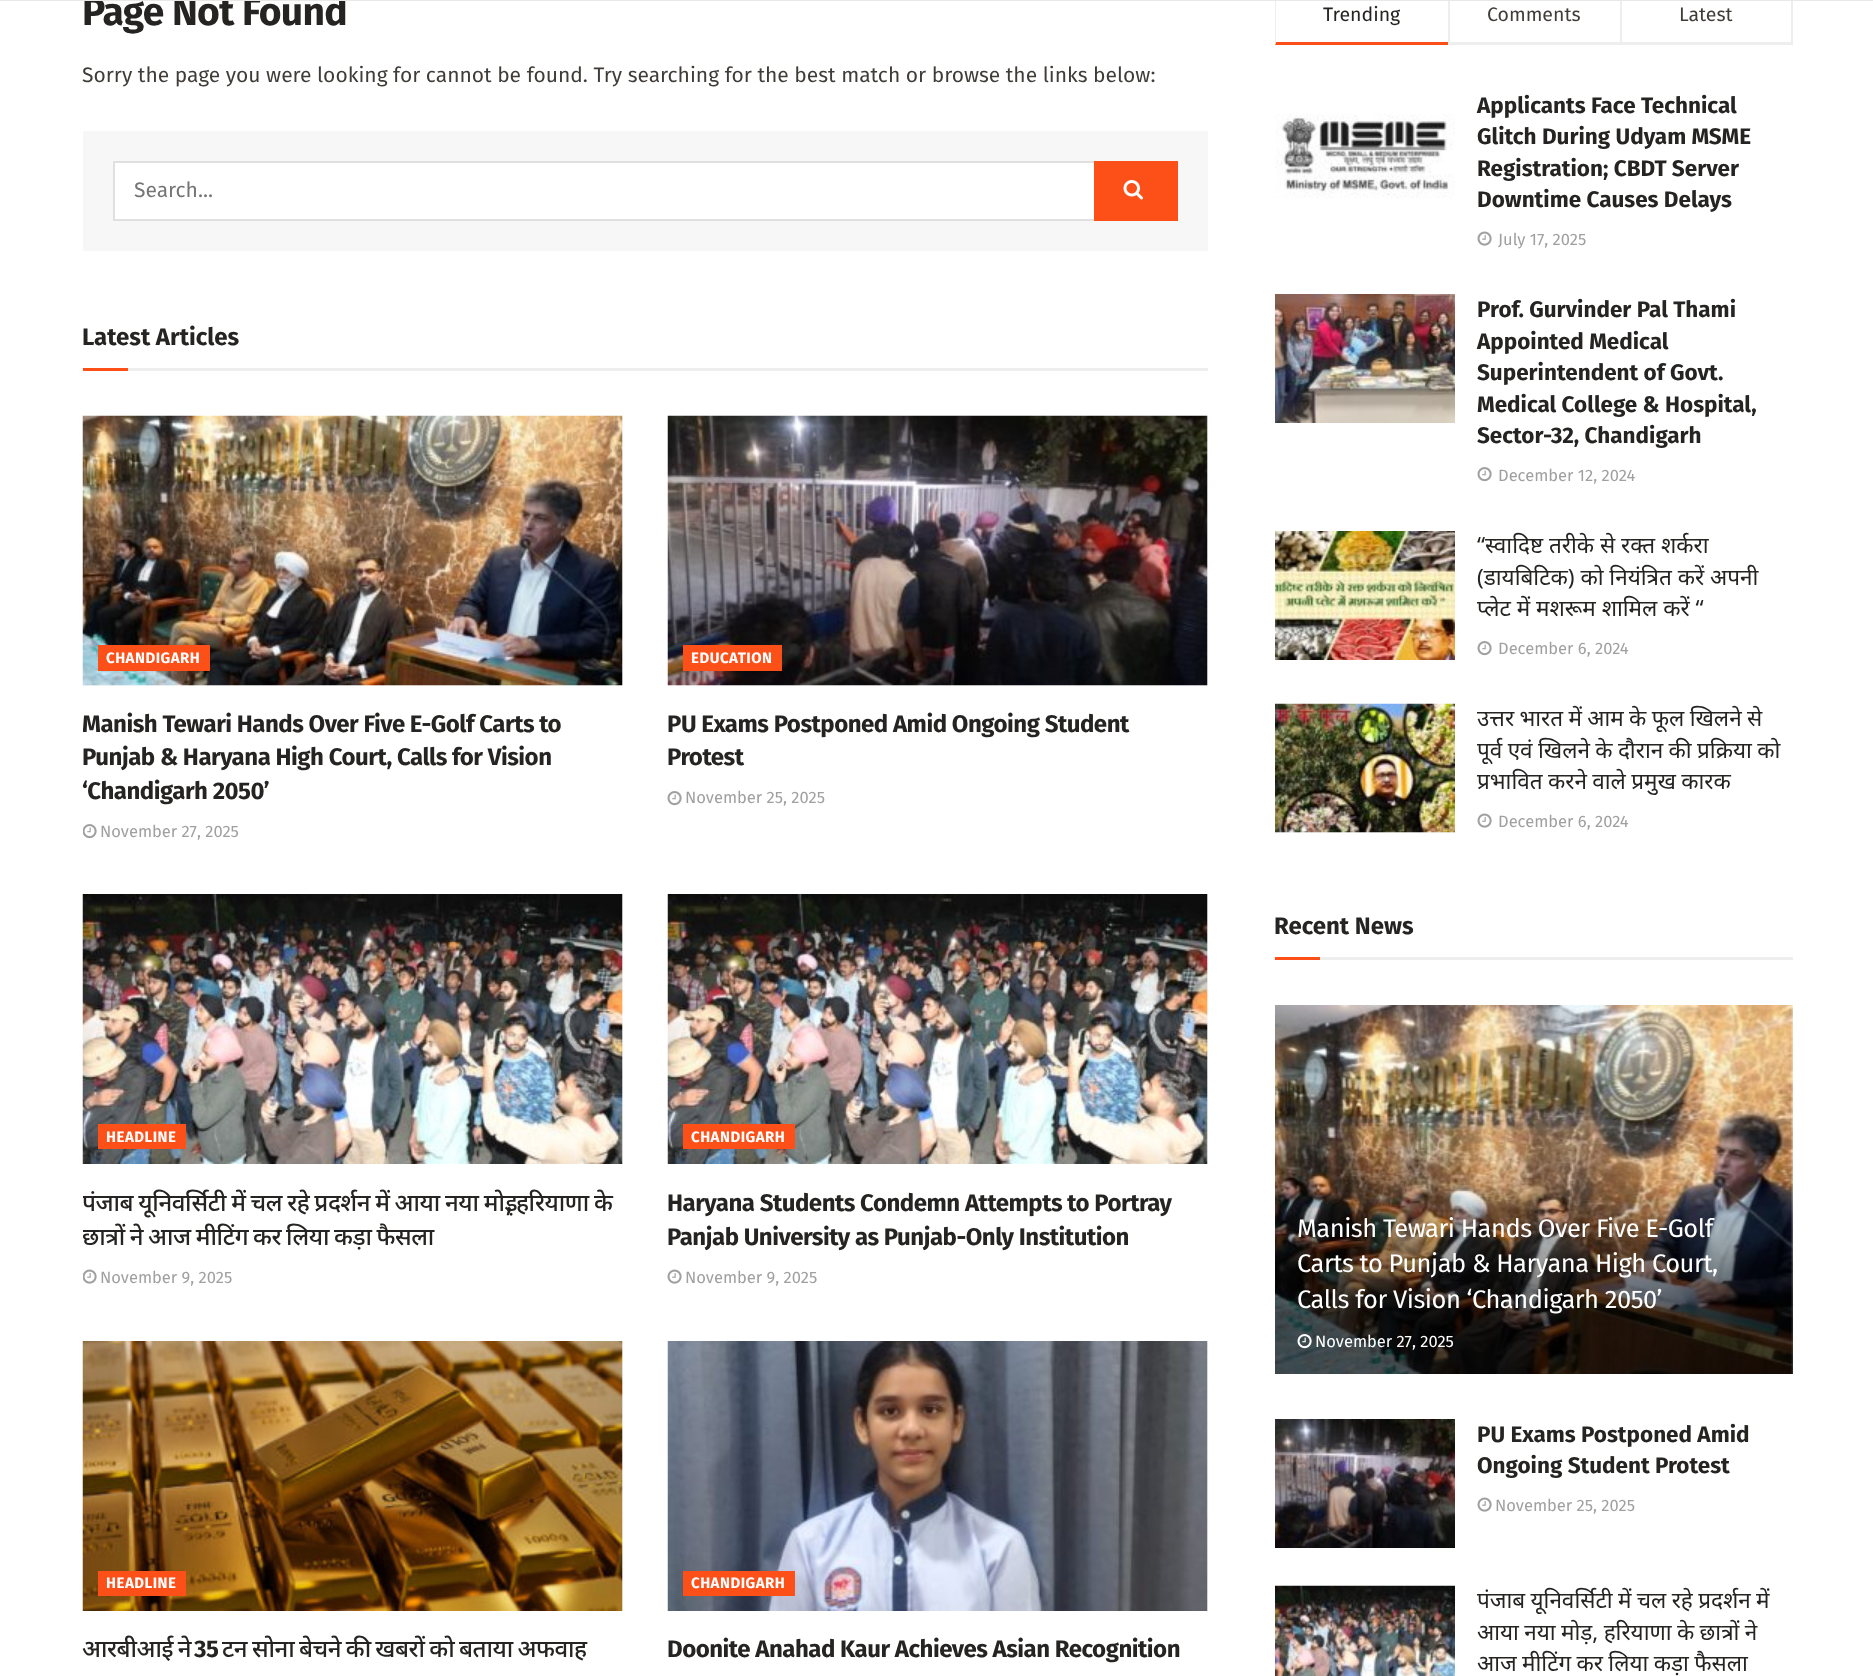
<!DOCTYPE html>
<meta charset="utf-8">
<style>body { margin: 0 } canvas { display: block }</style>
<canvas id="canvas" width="1873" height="1676"></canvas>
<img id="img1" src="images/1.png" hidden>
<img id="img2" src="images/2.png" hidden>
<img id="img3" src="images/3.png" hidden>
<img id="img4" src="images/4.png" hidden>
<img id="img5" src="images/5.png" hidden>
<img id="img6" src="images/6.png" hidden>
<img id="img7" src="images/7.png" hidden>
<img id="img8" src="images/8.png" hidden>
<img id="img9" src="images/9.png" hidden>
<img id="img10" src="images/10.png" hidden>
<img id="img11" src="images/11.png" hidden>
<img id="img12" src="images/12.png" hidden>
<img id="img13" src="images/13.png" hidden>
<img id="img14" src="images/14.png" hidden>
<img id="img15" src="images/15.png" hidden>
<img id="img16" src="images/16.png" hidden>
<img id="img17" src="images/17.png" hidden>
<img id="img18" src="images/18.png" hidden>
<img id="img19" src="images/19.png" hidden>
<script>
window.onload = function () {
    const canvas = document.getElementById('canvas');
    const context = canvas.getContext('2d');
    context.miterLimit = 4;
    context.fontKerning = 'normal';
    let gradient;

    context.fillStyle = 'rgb(255, 255, 255)';
    context.fillRect(0, 0, 1873, 1676);
    context.fillStyle = 'rgb(247, 247, 247)';
    context.fillRect(83, 131, 1125, 120);
    context.fillStyle = 'rgb(255, 255, 255)';
    context.fillRect(115, 163, 979, 56);
    context.strokeStyle = 'rgb(224, 224, 224)';
    context.lineWidth = 2;
    context.strokeRect(114, 162, 1063, 58);
    context.fillStyle = 'rgb(253, 79, 24)';
    context.fillRect(1094, 161, 84, 60);
    context.drawImage(document.getElementById('img1'), 1123, 180, 20, 20);
    context.fillStyle = 'rgb(238, 238, 238)';
    context.fillRect(128, 368, 1080, 3);
    context.fillStyle = 'rgb(253, 79, 24)';
    context.fillRect(83, 368, 45, 3);
    context.fillStyle = 'rgb(247, 247, 247)';
    context.fillRect(83, 416, 540, 270);
    context.drawImage(document.getElementById('img2'), 82, 415, 541, 271);
    context.fillStyle = 'rgb(253, 79, 24)';
    context.fillRect(98, 645, 112, 26);
    context.drawImage(document.getElementById('img3'), 83, 824, 14, 15);
    context.fillStyle = 'rgb(247, 247, 247)';
    context.fillRect(668, 416, 540, 270);
    context.drawImage(document.getElementById('img4'), 667, 415, 541, 271);
    context.fillStyle = 'rgb(253, 79, 24)';
    context.fillRect(683, 645, 99, 26);
    context.drawImage(document.getElementById('img5'), 667, 791, 15, 15);
    context.fillStyle = 'rgb(247, 247, 247)';
    context.fillRect(622, 894, 1, 270);
    context.drawImage(document.getElementById('img6'), 82, 894, 541, 270);
    context.fillStyle = 'rgb(253, 79, 24)';
    context.fillRect(98, 1124, 88, 25);
    context.drawImage(document.getElementById('img7'), 83, 1269, 14, 15);
    context.fillStyle = 'rgb(247, 247, 247)';
    context.fillRect(1207, 894, 1, 270);
    context.drawImage(document.getElementById('img8'), 667, 894, 541, 270);
    context.fillStyle = 'rgb(253, 79, 24)';
    context.fillRect(683, 1124, 112, 25);
    context.drawImage(document.getElementById('img9'), 667, 1269, 15, 15);
    context.fillStyle = 'rgb(247, 247, 247)';
    context.fillRect(622, 1341, 1, 270);
    context.drawImage(document.getElementById('img10'), 82, 1341, 541, 270);
    context.fillStyle = 'rgb(253, 79, 24)';
    context.fillRect(98, 1571, 88, 25);
    context.fillStyle = 'rgb(247, 247, 247)';
    context.fillRect(1207, 1341, 1, 270);
    context.drawImage(document.getElementById('img11'), 667, 1341, 541, 270);
    context.fillStyle = 'rgb(253, 79, 24)';
    context.fillRect(683, 1571, 112, 25);
    context.beginPath();
    context.moveTo(1448, 45);
    context.lineTo(1275, 45);
    context.lineTo(1276, 42);
    context.lineTo(1448, 42);
    context.closePath();
    context.fill();
    context.fillStyle = 'rgb(238, 238, 238)';
    context.beginPath();
    context.moveTo(1275, 45);
    context.lineTo(1275, -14);
    context.lineTo(1276, -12);
    context.lineTo(1276, 42);
    context.closePath();
    context.fill();
    context.fillRect(1448, 42, 172, 3);
    context.fillRect(1448, 0, 2, 45);
    context.fillRect(1791, 0, 2, 45);
    context.fillRect(1620, 42, 173, 3);
    context.fillRect(1620, 0, 2, 45);
    context.drawImage(document.getElementById('img12'), 1275, 90, 180, 129);
    context.drawImage(document.getElementById('img9'), 1477, 231, 15, 15);
    context.drawImage(document.getElementById('img13'), 1275, 294, 180, 129);
    context.drawImage(document.getElementById('img5'), 1477, 467, 15, 15);
    context.drawImage(document.getElementById('img14'), 1275, 531, 180, 129);
    context.drawImage(document.getElementById('img5'), 1477, 641, 15, 15);
    context.fillStyle = 'rgb(247, 247, 247)';
    context.fillRect(1275, 832, 180, 1);
    context.drawImage(document.getElementById('img15'), 1275, 703, 180, 130);
    context.drawImage(document.getElementById('img9'), 1477, 813, 15, 15);
    context.fillStyle = 'rgb(238, 238, 238)';
    context.fillRect(1320, 957, 473, 3);
    context.fillStyle = 'rgb(253, 79, 24)';
    context.fillRect(1275, 957, 45, 3);
    context.fillStyle = 'rgb(247, 247, 247)';
    context.fillRect(1791, 1005, 2, 369);
    context.drawImage(document.getElementById('img16'), 1275, 1005, 518, 369);
    gradient = context.createLinearGradient(1534, 1182, 1534, 1374);
    gradient.addColorStop(0, 'rgba(0, 0, 0, 0)');
    gradient.addColorStop(0.7, 'rgba(0, 0, 0, 0.65)');
    context.fillStyle = gradient;
    context.fillRect(1275, 1186, 518, 188);
    context.drawImage(document.getElementById('img17'), 1297, 1334, 15, 15);
    context.drawImage(document.getElementById('img18'), 1275, 1419, 180, 129);
    context.drawImage(document.getElementById('img9'), 1477, 1497, 15, 15);
    context.drawImage(document.getElementById('img19'), 1275, 1585, 180, 91);
    context.letterSpacing = '-0.75px';
    context.font = 'bold 39px Fira Sans';
    context.fillStyle = 'rgb(37, 36, 34)';
    context.fillText('Page Not Found', 82, 25);
    context.fillStyle = 'rgb(232, 232, 232)';
    context.fillRect(0, 0, 1873, 1);
    context.letterSpacing = '0px';
    context.font = '21px Fira Sans';
    context.fillStyle = 'rgb(64, 61, 57)';
    context.fillText('Sorry the page you were looking for cannot be found. Try searching for the best match or browse the links below:', 82, 82);
    context.fillStyle = 'rgb(117, 117, 117)';
    context.fillText('Search...', 134, 197);
    context.font = 'bold 24px Fira Sans';
    context.fillStyle = 'rgb(37, 36, 34)';
    context.fillText('Latest Articles', 82, 345);
    context.letterSpacing = '0.5px';
    context.font = 'bold 15px Fira Sans';
    context.fillStyle = 'rgb(255, 255, 255)';
    context.fillText('CHANDIGARH', 106, 663);
    context.save();
    context.beginPath();
    context.rect(83, 416, 1125, 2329);
    context.clip();
    context.letterSpacing = '-0.48px';
    context.font = 'bold 24px Fira Sans';
    context.fillStyle = 'rgb(37, 36, 34)';
    context.fillText('Manish Tewari Hands Over Five E-Golf Carts to', 82, 732);
    context.restore();
    context.letterSpacing = '-0.48px';
    context.font = 'bold 24px Fira Sans';
    context.fillStyle = 'rgb(37, 36, 34)';
    context.fillText('Punjab & Haryana High Court, Calls for Vision', 82, 765);
    context.fillText('‘Chandigarh 2050’', 82, 799);
    context.letterSpacing = '0px';
    context.font = '16.5px Fira Sans';
    context.fillStyle = 'rgb(160, 160, 160)';
    context.fillText('November 27, 2025', 100, 837);
    context.letterSpacing = '0.5px';
    context.font = 'bold 15px Fira Sans';
    context.fillStyle = 'rgb(255, 255, 255)';
    context.fillText('EDUCATION', 691, 663);
    context.letterSpacing = '-0.48px';
    context.font = 'bold 24px Fira Sans';
    context.fillStyle = 'rgb(37, 36, 34)';
    context.fillText('PU Exams Postponed Amid Ongoing Student', 667, 732);
    context.fillText('Protest', 667, 765);
    context.letterSpacing = '0px';
    context.font = '16.5px Fira Sans';
    context.fillStyle = 'rgb(160, 160, 160)';
    context.fillText('November 25, 2025', 685, 803);
    context.letterSpacing = '0.5px';
    context.font = 'bold 15px Fira Sans';
    context.fillStyle = 'rgb(255, 255, 255)';
    context.fillText('HEADLINE', 106, 1142);
    context.save();
    context.beginPath();
    context.rect(83, 416, 1125, 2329);
    context.clip();
    context.letterSpacing = '-0.48px';
    context.wordSpacing = '-0.6px';
    context.font = '500 24px Noto Sans';
    context.fillStyle = 'rgb(37, 36, 34)';
    context.fillText('पंजाब यूनिवर्सिटी में चल रहे प्रदर्शन में आया नया मोड़', 82, 1211);
    context.restore();
    context.letterSpacing = '-0.48px';
    context.font = 'bold 24px Fira Sans';
    context.fillStyle = 'rgb(37, 36, 34)';
    context.fillText(',', 506, 1211);
    context.wordSpacing = '-0.6px';
    context.font = '500 24px Noto Sans';
    context.fillText('हरियाणा के', 516, 1211);
    context.save();
    context.beginPath();
    context.rect(83, 416, 1125, 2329);
    context.clip();
    context.wordSpacing = '-0.75px';
    context.fillText('छात्रों ने आज मीटिंग कर लिया कड़ा फैसला', 82, 1245);
    context.restore();
    context.letterSpacing = '0px';
    context.wordSpacing = '0px';
    context.font = '16.5px Fira Sans';
    context.fillStyle = 'rgb(160, 160, 160)';
    context.fillText('November 9, 2025', 100, 1283);
    context.letterSpacing = '0.5px';
    context.font = 'bold 15px Fira Sans';
    context.fillStyle = 'rgb(255, 255, 255)';
    context.fillText('CHANDIGARH', 691, 1142);
    context.letterSpacing = '-0.48px';
    context.font = 'bold 24px Fira Sans';
    context.fillStyle = 'rgb(37, 36, 34)';
    context.fillText('Haryana Students Condemn Attempts to Portray', 667, 1211);
    context.fillText('Panjab University as Punjab-Only Institution', 667, 1245);
    context.letterSpacing = '0px';
    context.font = '16.5px Fira Sans';
    context.fillStyle = 'rgb(160, 160, 160)';
    context.fillText('November 9, 2025', 685, 1283);
    context.letterSpacing = '0.5px';
    context.font = 'bold 15px Fira Sans';
    context.fillStyle = 'rgb(255, 255, 255)';
    context.fillText('HEADLINE', 106, 1588);
    context.letterSpacing = '-0.48px';
    context.wordSpacing = '-1px';
    context.font = '500 24px Noto Sans';
    context.fillStyle = 'rgb(37, 36, 34)';
    context.fillText('आरबीआई ने', 82, 1657);
    context.wordSpacing = '0px';
    context.font = 'bold 24px Fira Sans';
    context.fillText('35', 194, 1657);
    context.wordSpacing = '-1px';
    context.font = '500 24px Noto Sans';
    context.fillText('टन सोना बेचने की खबरों को बताया अफवाह', 222, 1657);
    context.letterSpacing = '0.5px';
    context.wordSpacing = '0px';
    context.font = 'bold 15px Fira Sans';
    context.fillStyle = 'rgb(255, 255, 255)';
    context.fillText('CHANDIGARH', 691, 1588);
    context.letterSpacing = '-0.48px';
    context.font = 'bold 24px Fira Sans';
    context.fillStyle = 'rgb(37, 36, 34)';
    context.fillText('Doonite Anahad Kaur Achieves Asian Recognition', 667, 1657);
    context.letterSpacing = '0px';
    context.font = '19.5px Fira Sans';
    context.fillText('Trending', 1323, 21);
    context.fillStyle = 'rgb(64, 61, 57)';
    context.fillText('Comments', 1487, 21);
    context.fillText('Latest', 1679, 21);
    context.font = 'bold 22.5px Fira Sans';
    context.fillStyle = 'rgb(37, 36, 34)';
    context.fillText('Applicants Face Technical', 1477, 113);
    context.fillText('Glitch During Udyam MSME', 1477, 144);
    context.fillText('Registration; CBDT Server', 1477, 176);
    context.fillText('Downtime Causes Delays', 1477, 207);
    context.font = '16.5px Fira Sans';
    context.fillStyle = 'rgb(160, 160, 160)';
    context.fillText('July 17, 2025', 1498, 245);
    context.font = 'bold 22.5px Fira Sans';
    context.fillStyle = 'rgb(37, 36, 34)';
    context.fillText('Prof. Gurvinder Pal Thami', 1477, 317);
    context.fillText('Appointed Medical', 1477, 349);
    context.fillText('Superintendent of Govt.', 1477, 380);
    context.fillText('Medical College & Hospital,', 1477, 412);
    context.fillText('Sector-32, Chandigarh', 1477, 443);
    context.font = '16.5px Fira Sans';
    context.fillStyle = 'rgb(160, 160, 160)';
    context.fillText('December 12, 2024', 1498, 481);
    context.font = '22.5px Noto Sans';
    context.fillStyle = 'rgb(37, 36, 34)';
    context.fillText('“स्वादिष्ट तरीके से रक्त शर्करा', 1477, 553);
    context.fillText('(डायबिटिक) को नियंत्रित करें अपनी', 1477, 585);
    context.fillText('प्लेट में मशरूम शामिल करें “', 1477, 616);
    context.font = '16.5px Fira Sans';
    context.fillStyle = 'rgb(160, 160, 160)';
    context.fillText('December 6, 2024', 1498, 654);
    context.wordSpacing = '-0.5px';
    context.font = '22.5px Noto Sans';
    context.fillStyle = 'rgb(37, 36, 34)';
    context.fillText('उत्तर भारत में आम के फूल खिलने से', 1477, 726);
    context.fillText('पूर्व एवं खिलने के दौरान की प्रक्रिया को', 1477, 758);
    context.fillText('प्रभावित करने वाले प्रमुख कारक', 1477, 789);
    context.wordSpacing = '0px';
    context.font = '16.5px Fira Sans';
    context.fillStyle = 'rgb(160, 160, 160)';
    context.fillText('December 6, 2024', 1498, 827);
    context.font = 'bold 24px Fira Sans';
    context.fillStyle = 'rgb(37, 36, 34)';
    context.fillText('Recent News', 1274, 934);
    context.letterSpacing = '-0.5px';
    context.font = '25.5px Fira Sans';
    context.fillStyle = 'rgb(255, 255, 255)';
    context.fillText('Manish Tewari Hands Over Five E-Golf', 1297, 1237);
    context.fillText('Carts to Punjab & Haryana High Court,', 1297, 1272);
    context.fillText('Calls for Vision ‘Chandigarh 2050’', 1297, 1308);
    context.letterSpacing = '0px';
    context.font = '16.5px Fira Sans';
    context.fillText('November 27, 2025', 1315, 1347);
    context.font = 'bold 22.5px Fira Sans';
    context.fillStyle = 'rgb(37, 36, 34)';
    context.fillText('PU Exams Postponed Amid', 1477, 1442);
    context.fillText('Ongoing Student Protest', 1477, 1473);
    context.font = '16.5px Fira Sans';
    context.fillStyle = 'rgb(160, 160, 160)';
    context.fillText('November 25, 2025', 1495, 1511);
    context.wordSpacing = '-0.5px';
    context.font = '22.5px Noto Sans';
    context.fillStyle = 'rgb(37, 36, 34)';
    context.fillText('पंजाब यूनिवर्सिटी में चल रहे प्रदर्शन में', 1477, 1608);
    context.fillText('आया नया मोड़, हरियाणा के छात्रों ने', 1477, 1640);
    context.fillText('आज मीटिंग कर लिया कड़ा फैसला', 1477, 1671);
};
</script>
